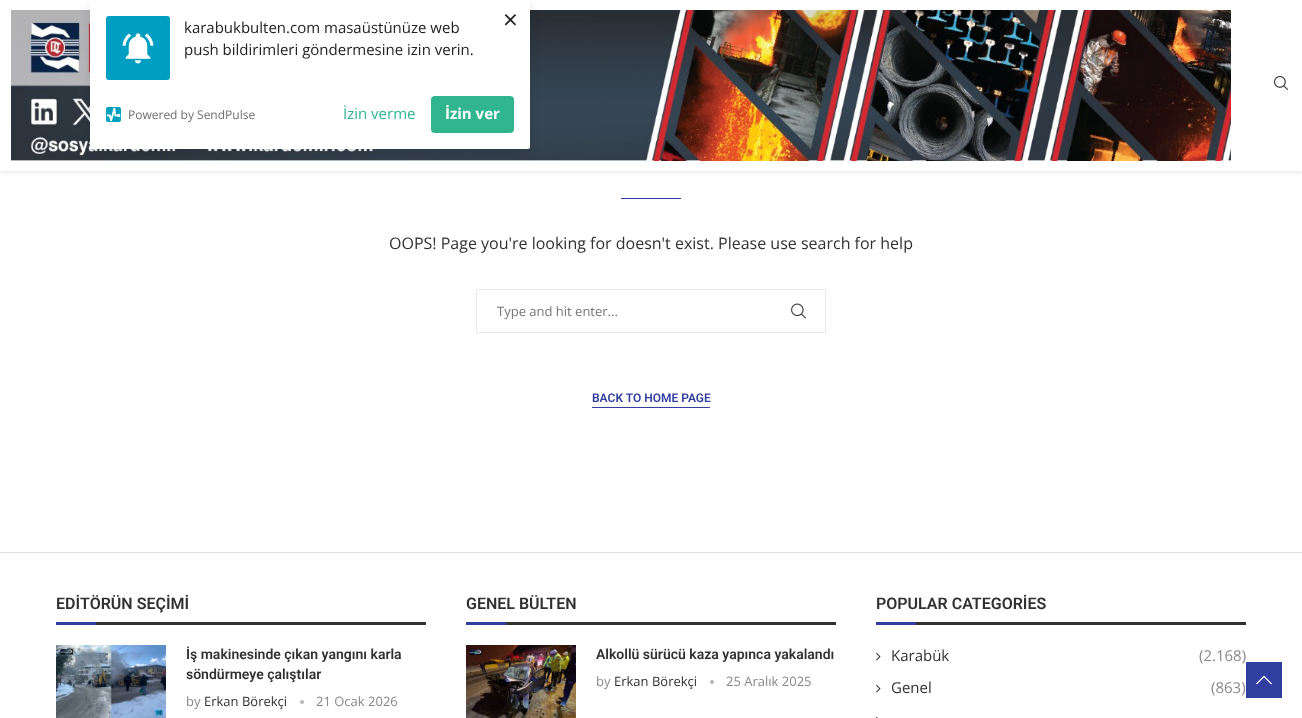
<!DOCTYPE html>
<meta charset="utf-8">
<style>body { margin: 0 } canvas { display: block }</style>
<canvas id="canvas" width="1302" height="718"></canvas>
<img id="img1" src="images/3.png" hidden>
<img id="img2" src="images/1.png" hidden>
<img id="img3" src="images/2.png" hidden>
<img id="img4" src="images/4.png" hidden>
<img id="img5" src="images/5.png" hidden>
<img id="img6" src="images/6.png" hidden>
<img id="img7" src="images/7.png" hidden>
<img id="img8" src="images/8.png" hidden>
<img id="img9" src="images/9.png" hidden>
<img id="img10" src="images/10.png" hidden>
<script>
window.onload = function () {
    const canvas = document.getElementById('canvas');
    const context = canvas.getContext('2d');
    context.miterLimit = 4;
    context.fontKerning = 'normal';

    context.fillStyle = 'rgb(255, 255, 255)';
    context.fillRect(0, 0, 1302, 718);
    context.fillStyle = 'rgba(190, 190, 190, 0.46)';
    context.filter = 'blur(2.5px)';
    context.beginPath();
    context.rect(0, 1, 1302, 171);
    context.fill();
    context.filter = 'none';
    context.fillStyle = 'rgb(255, 255, 255)';
    context.fillRect(0, 0, 1302, 171);
    context.drawImage(document.getElementById('img1'), 11, 10, 1220, 151);
    context.fillStyle = 'rgba(0, 0, 0, 0.1)';
    context.filter = 'blur(5px)';
    context.beginPath();
    context.roundRect(90, 4, 440, 149, 2);
    context.fill();
    context.filter = 'none';
    context.fillStyle = 'rgb(255, 255, 255)';
    context.beginPath();
    context.roundRect(90, 0, 440, 149, 2);
    context.fill();
    context.drawImage(document.getElementById('img2'), 106, 16, 64, 64);
    context.drawImage(document.getElementById('img3'), 106, 107, 15, 15);
    context.fillStyle = 'rgb(49, 181, 142)';
    context.beginPath();
    context.roundRect(431, 96, 83, 37, 4);
    context.fill();
    context.drawImage(document.getElementById('img4'), 1274, 76, 14, 14);
    context.fillStyle = 'rgb(48, 63, 159)';
    context.fillRect(621, 198, 60, 1);
    context.strokeStyle = 'rgb(233, 233, 233)';
    context.strokeRect(476.5, 289.5, 349, 43);
    context.drawImage(document.getElementById('img5'), 791, 303, 15, 16);
    context.fillRect(592, 407, 118, 1);
    context.fillStyle = 'rgb(222, 222, 222)';
    context.fillRect(0, 552, 1302, 1);
    context.fillStyle = 'rgb(49, 49, 49)';
    context.fillRect(96, 622, 330, 3);
    context.fillStyle = 'rgb(48, 63, 159)';
    context.fillRect(56, 622, 40, 3);
    context.drawImage(document.getElementById('img6'), 56, 645, 110, 73);
    context.fillStyle = 'rgb(184, 184, 184)';
    context.beginPath();
    context.arc(302, 702, 2, 0, 2 * Math.PI);
    context.fill();
    context.fillStyle = 'rgb(49, 49, 49)';
    context.fillRect(506, 622, 330, 3);
    context.fillStyle = 'rgb(48, 63, 159)';
    context.fillRect(466, 622, 40, 3);
    context.drawImage(document.getElementById('img7'), 466, 645, 110, 73);
    context.fillStyle = 'rgb(184, 184, 184)';
    context.beginPath();
    context.arc(712, 682, 2, 0, 2 * Math.PI);
    context.fill();
    context.fillStyle = 'rgb(49, 49, 49)';
    context.fillRect(916, 622, 330, 3);
    context.fillStyle = 'rgb(48, 63, 159)';
    context.fillRect(876, 622, 40, 3);
    context.drawImage(document.getElementById('img8'), 876, 653, 5, 8);
    context.drawImage(document.getElementById('img8'), 876, 685, 5, 8);
    context.drawImage(document.getElementById('img9'), 876, 717, 2, 1);
    context.fillRect(1246, 662, 36, 36);
    context.drawImage(document.getElementById('img10'), 1256, 675, 16, 10);
    context.font = '15px Open Sans';
    context.fillStyle = 'rgb(34, 34, 34)';
    context.fillText('karabukbulten.com masaüstünüze web', 184, 33);
    context.fillText('push bildirimleri göndermesine izin verin.', 184, 55);
    context.font = '12px Open Sans';
    context.fillStyle = 'rgb(111, 111, 111)';
    context.fillText('Powered by SendPulse', 128, 119);
    context.font = '15px Open Sans';
    context.fillStyle = 'rgb(49, 181, 142)';
    context.fillText('İzin verme', 343, 119);
    context.font = 'bold 15px Open Sans';
    context.fillStyle = 'rgb(255, 255, 255)';
    context.fillText('İzin ver', 445, 119);
    context.font = '26px Open Sans';
    context.fillStyle = 'rgb(34, 34, 34)';
    context.fillText('×', 503, 29);
    context.font = '16px Open Sans';
    context.fillStyle = 'rgb(49, 49, 49)';
    context.fillText('OOPS! Page you\'re looking for doesn\'t exist. Please use search for help', 389, 249);
    context.font = '13px Open Sans';
    context.fillStyle = 'rgb(117, 117, 117)';
    context.fillText('Type and hit enter...', 497, 316);
    context.font = '600 12px Roboto';
    context.fillStyle = 'rgb(48, 63, 159)';
    context.fillText('BACK TO HOME PAGE', 592, 402);
    context.font = '600 16px Roboto';
    context.fillStyle = 'rgb(49, 49, 49)';
    context.fillText('EDİTÖRÜN SEÇİMİ', 56, 609);
    context.font = '600 14px Roboto';
    context.fillText('İş makinesinde çıkan yangını karla', 186, 659);
    context.fillText('söndürmeye çalıştılar', 186, 679);
    context.font = '13px Open Sans';
    context.fillStyle = 'rgb(136, 136, 136)';
    context.fillText('by', 186, 706);
    context.fillStyle = 'rgb(49, 49, 49)';
    context.fillText('Erkan Börekçi', 204, 706);
    context.fillStyle = 'rgb(136, 136, 136)';
    context.fillText('21 Ocak 2026', 316, 706);
    context.font = '600 16px Roboto';
    context.fillStyle = 'rgb(49, 49, 49)';
    context.fillText('GENEL BÜLTEN', 466, 609);
    context.font = '600 14px Roboto';
    context.fillText('Alkollü sürücü kaza yapınca yakalandı', 596, 659);
    context.font = '13px Open Sans';
    context.fillStyle = 'rgb(136, 136, 136)';
    context.fillText('by', 596, 686);
    context.fillStyle = 'rgb(49, 49, 49)';
    context.fillText('Erkan Börekçi', 614, 686);
    context.fillStyle = 'rgb(136, 136, 136)';
    context.fillText('25 Aralık 2025', 726, 686);
    context.font = '600 16px Roboto';
    context.fillStyle = 'rgb(49, 49, 49)';
    context.fillText('POPULAR CATEGORİES', 876, 609);
    context.font = '15px Open Sans';
    context.fillText('Karabük', 891, 661);
    context.fillStyle = 'rgb(136, 136, 136)';
    context.fillText('(2.168)', 1199, 661);
    context.fillStyle = 'rgb(49, 49, 49)';
    context.fillText('Genel', 891, 693);
    context.fillStyle = 'rgb(136, 136, 136)';
    context.fillText('(863)', 1211, 693);
};
</script>
